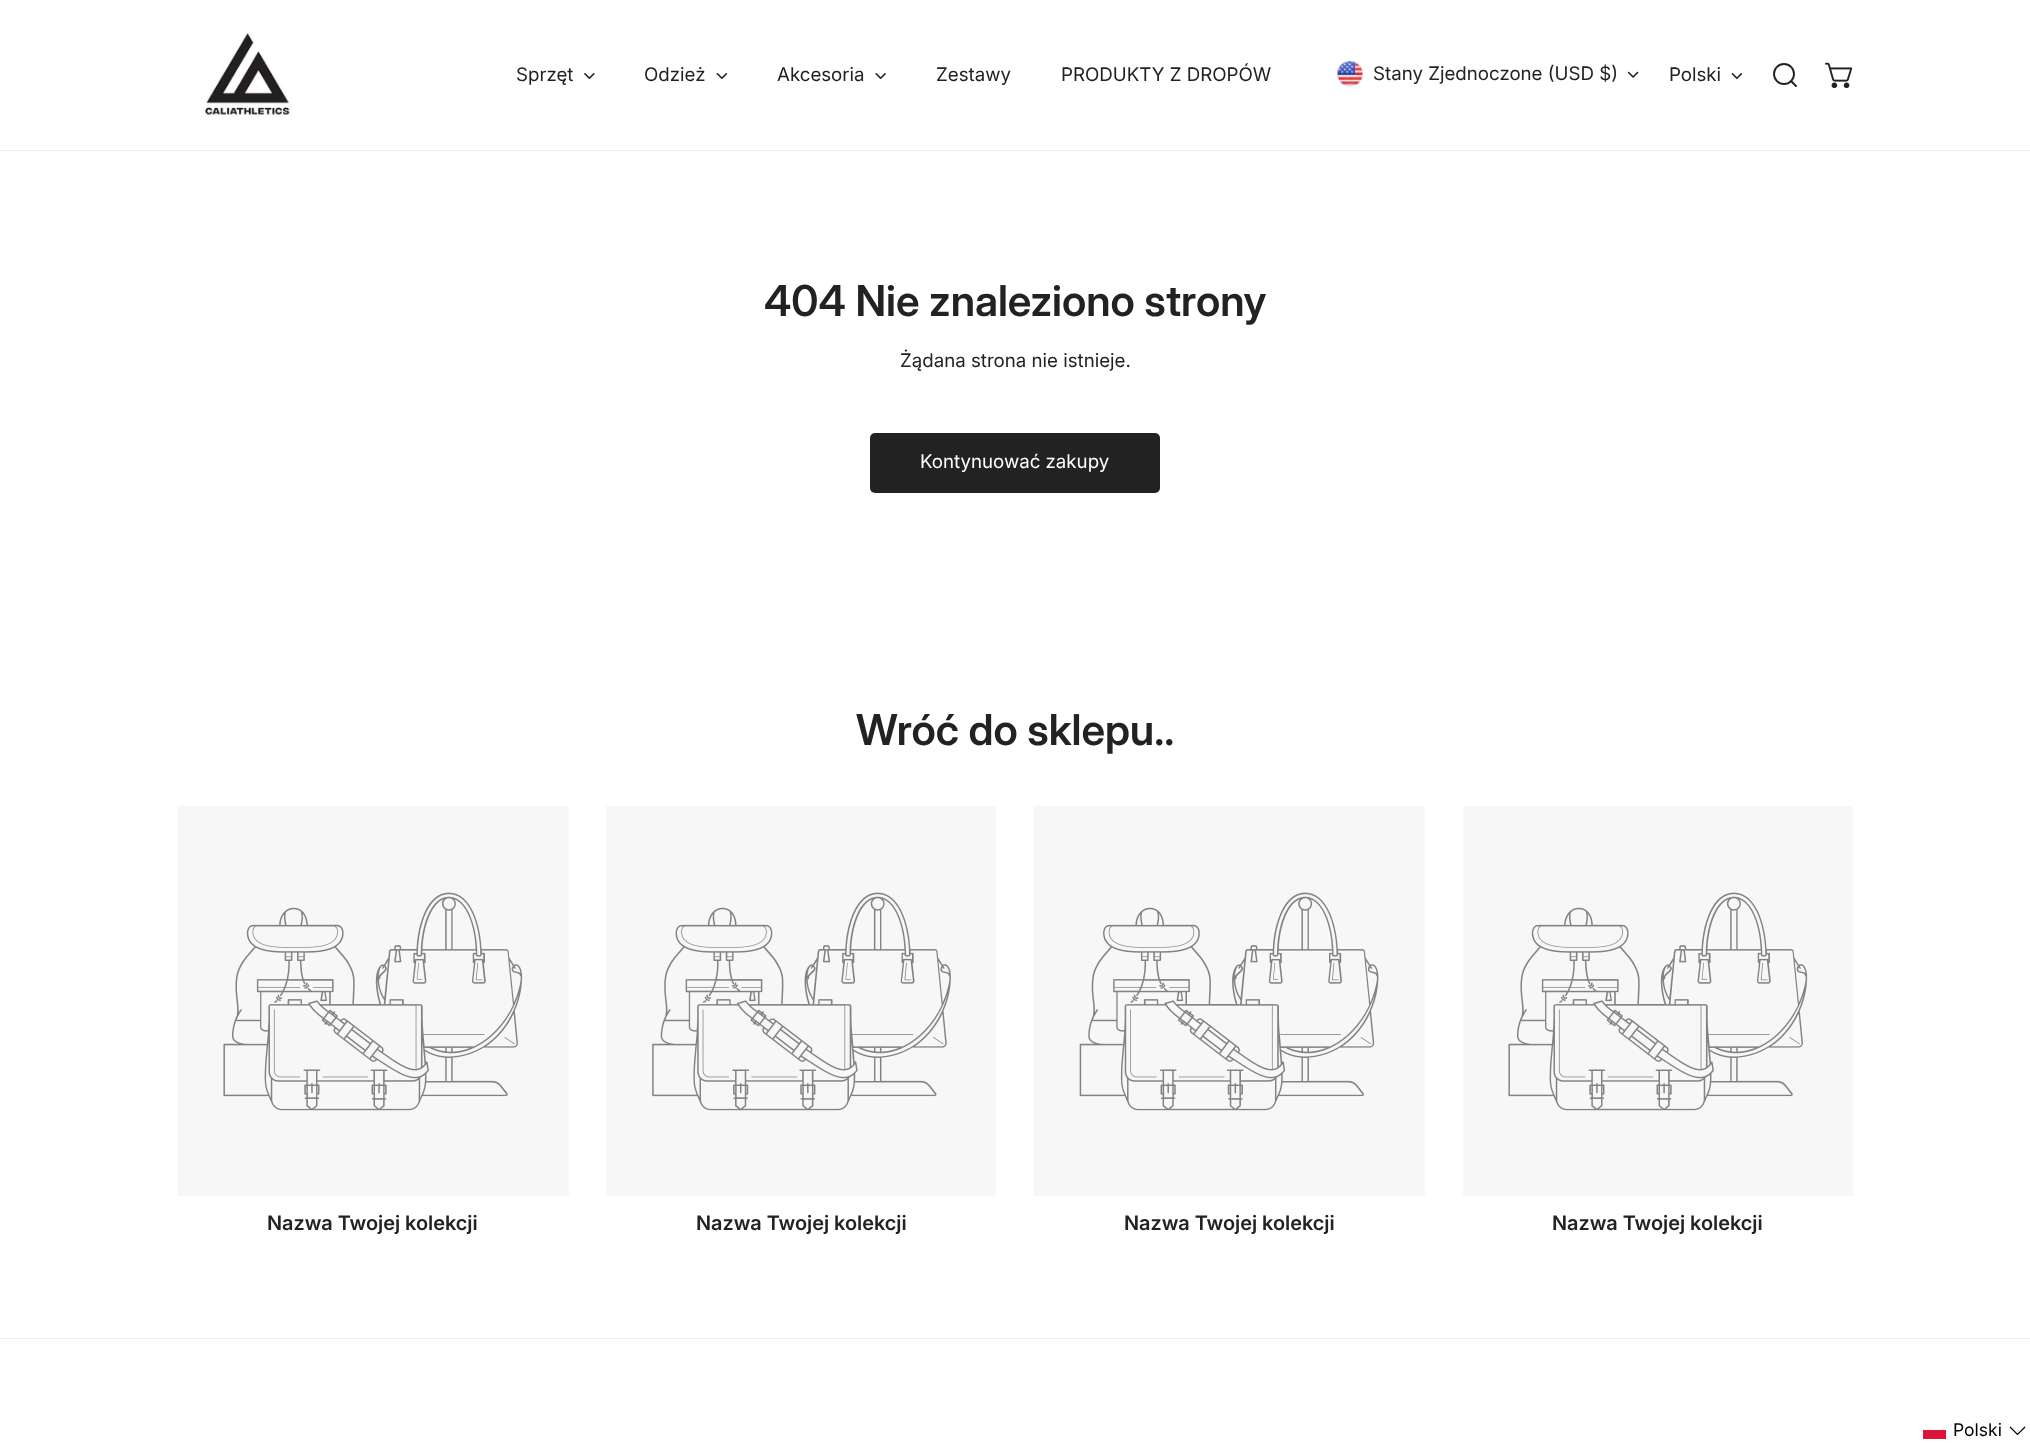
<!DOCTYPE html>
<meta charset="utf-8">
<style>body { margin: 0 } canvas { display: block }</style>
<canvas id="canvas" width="2030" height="1443"></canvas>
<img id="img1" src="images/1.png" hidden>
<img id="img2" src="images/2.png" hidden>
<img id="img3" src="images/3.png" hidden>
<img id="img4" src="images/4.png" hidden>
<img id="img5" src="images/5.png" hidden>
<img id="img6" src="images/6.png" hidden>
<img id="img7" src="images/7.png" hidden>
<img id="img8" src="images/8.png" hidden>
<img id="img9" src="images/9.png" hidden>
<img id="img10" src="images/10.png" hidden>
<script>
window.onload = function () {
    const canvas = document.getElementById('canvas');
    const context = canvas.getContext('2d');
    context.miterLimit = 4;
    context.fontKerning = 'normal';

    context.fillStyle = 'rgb(255, 255, 255)';
    context.fillRect(0, 0, 2030, 1443);
    context.fillStyle = 'rgb(238, 238, 238)';
    context.fillRect(0, 150, 2030, 1);
    context.drawImage(document.getElementById('img1'), 204, 33, 87, 83);
    context.drawImage(document.getElementById('img2'), 584, 73, 11, 6);
    context.drawImage(document.getElementById('img3'), 716, 73, 12, 6);
    context.drawImage(document.getElementById('img4'), 875, 73, 11, 6);
    context.drawImage(document.getElementById('img5'), 1337, 61, 26, 26);
    context.drawImage(document.getElementById('img6'), 1628, 71, 11, 7);
    context.drawImage(document.getElementById('img3'), 1731, 73, 12, 6);
    context.beginPath();
    context.arc(1784, 74, 10, 0, 2 * Math.PI);
    context.strokeStyle = 'rgb(34, 34, 34)';
    context.lineWidth = 1.9;
    context.stroke();
    context.beginPath();
    context.moveTo(1796, 86);
    context.lineTo(1791, 81);
    context.lineCap = 'round';
    context.lineJoin = 'round';
    context.stroke();
    context.drawImage(document.getElementById('img7'), 1825, 62, 28, 27);
    context.fillStyle = 'rgb(34, 34, 34)';
    context.beginPath();
    context.roundRect(870, 433, 290, 60, 5);
    context.fill();
    context.fillStyle = 'rgb(247, 247, 247)';
    context.fillRect(178, 806, 391, 390);
    context.drawImage(document.getElementById('img8'), 223, 892, 300, 219);
    context.fillRect(606, 806, 390, 390);
    context.drawImage(document.getElementById('img9'), 652, 892, 299, 219);
    context.fillRect(1034, 806, 391, 390);
    context.drawImage(document.getElementById('img10'), 1079, 892, 300, 219);
    context.fillRect(1463, 806, 390, 390);
    context.drawImage(document.getElementById('img8'), 1508, 892, 300, 219);
    context.fillStyle = 'rgb(238, 238, 238)';
    context.fillRect(0, 1338, 2030, 1);
    context.fillStyle = 'rgb(220, 20, 60)';
    context.fillRect(1923, 1430, 23, 9);
    context.beginPath();
    context.moveTo(2010, 1427);
    context.lineTo(2017.5, 1434.5);
    context.lineTo(2025, 1427);
    context.strokeStyle = 'rgb(0, 0, 0)';
    context.lineWidth = 1.2;
    context.lineCap = 'butt';
    context.lineJoin = 'miter';
    context.stroke();
    context.font = '18.75px Inter';
    context.fillStyle = 'rgb(34, 34, 34)';
    context.fillText('Sprzęt', 516, 81);
    context.fillText('Odzież', 644, 81);
    context.fillText('Akcesoria', 777, 81);
    context.fillText('Zestawy', 936, 81);
    context.fillText('PRODUKTY Z DROPÓW', 1061, 81);
    context.fillText('Stany Zjednoczone (USD $)', 1373, 80);
    context.fillText('Polski', 1669, 81);
    context.font = '600 42.5px Inter';
    context.fillText('404 Nie znaleziono strony', 764, 316);
    context.font = '18.75px Inter';
    context.fillText('Żądana strona nie istnieje.', 900, 367);
    context.fillStyle = 'rgb(255, 255, 255)';
    context.fillText('Kontynuować zakupy', 920, 468);
    context.font = '600 42.5px Inter';
    context.fillStyle = 'rgb(34, 34, 34)';
    context.fillText('Wróć do sklepu..', 856, 745);
    context.font = '600 20px "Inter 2"';
    context.fillText('Nazwa Twojej kolekcji', 267, 1230);
    context.fillText('Nazwa Twojej kolekcji', 696, 1230);
    context.fillText('Nazwa Twojej kolekcji', 1124, 1230);
    context.fillText('Nazwa Twojej kolekcji', 1552, 1230);
    context.font = '17.5px "Inter 2"';
    context.fillStyle = 'rgb(0, 0, 0)';
    context.fillText('Polski', 1953, 1436);
};
</script>
